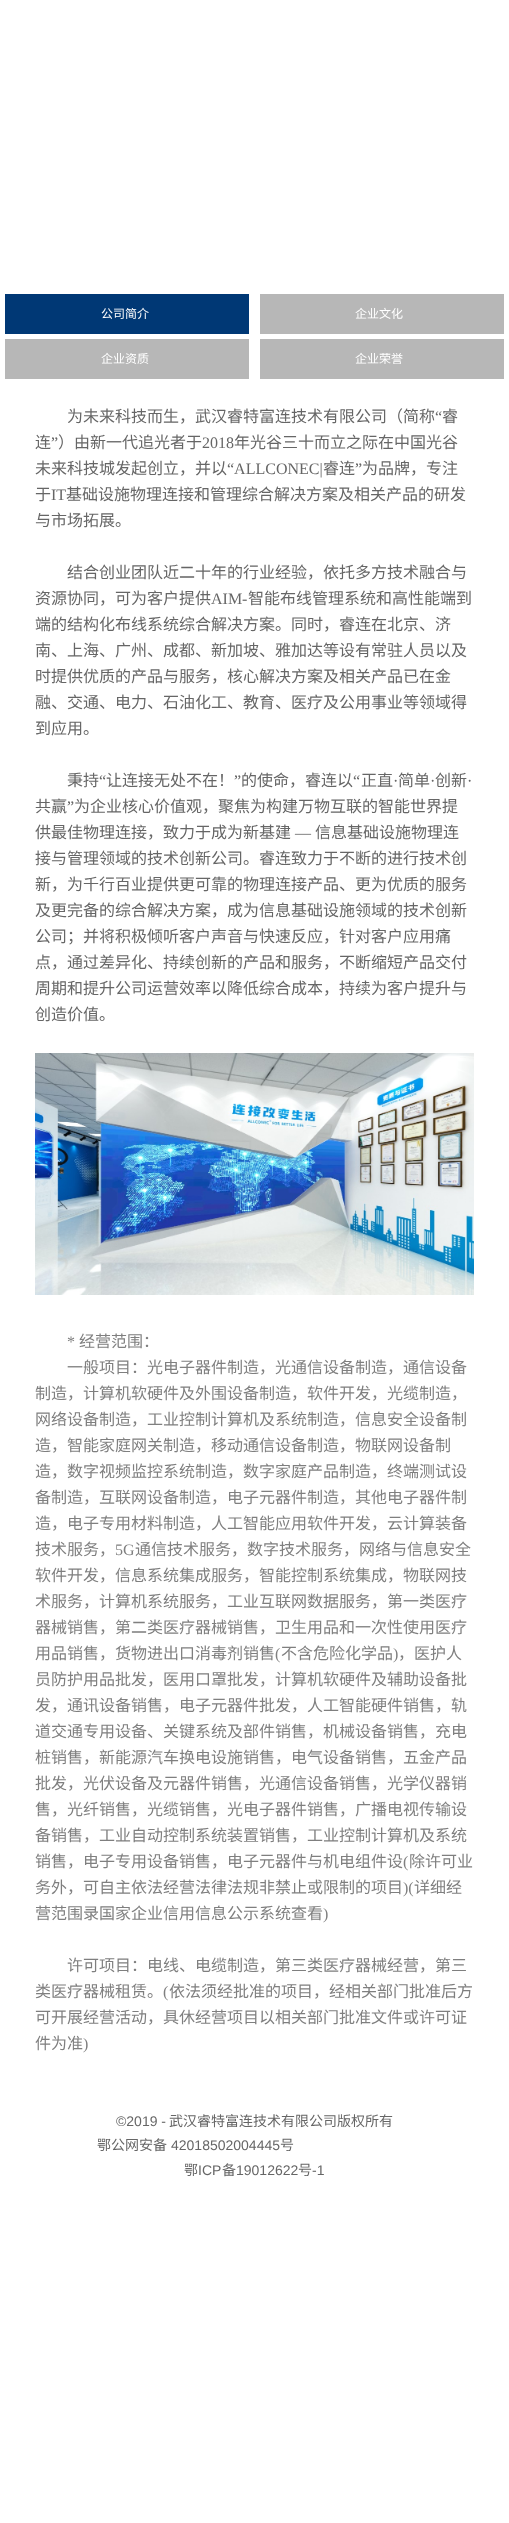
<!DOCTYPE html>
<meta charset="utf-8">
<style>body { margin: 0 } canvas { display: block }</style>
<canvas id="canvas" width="509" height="2523"></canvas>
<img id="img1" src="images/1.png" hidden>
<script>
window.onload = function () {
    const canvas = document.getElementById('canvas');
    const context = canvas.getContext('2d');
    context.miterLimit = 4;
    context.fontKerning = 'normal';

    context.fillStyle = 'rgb(255, 255, 255)';
    context.fillRect(0, 0, 509, 2523);
    context.fillStyle = 'rgb(0, 56, 117)';
    context.fillRect(5, 294, 244, 40);
    context.fillStyle = 'rgb(183, 183, 183)';
    context.fillRect(260, 294, 244, 40);
    context.fillRect(5, 339, 244, 40);
    context.fillRect(260, 339, 244, 40);
    context.drawImage(document.getElementById('img1'), 35, 1053, 439, 242);
    context.font = '12px Noto Sans CJK SC';
    context.fillStyle = 'rgb(255, 255, 255)';
    context.fillText('公司简介', 101, 318);
    context.fillText('企业文化', 355, 318);
    context.fillText('企业资质', 101, 363);
    context.fillText('企业荣誉', 355, 363);
    context.font = '16px Noto Sans CJK SC';
    context.fillStyle = 'rgb(102, 102, 102)';
    context.fillText('为未来科技而生，武汉睿特富连技术有限公司（简称', 67, 422);
    context.font = '16px Liberation Serif';
    context.fillText('“', 435, 422);
    context.font = '16px Noto Sans CJK SC';
    context.fillText('睿', 442, 422);
    context.fillText('连', 35, 448);
    context.font = '16px Liberation Serif';
    context.fillText('”', 51, 448);
    context.font = '16px Noto Sans CJK SC';
    context.fillText('）由新一代追光者于', 58, 448);
    context.font = '16px Liberation Serif';
    context.fillText('2018', 202, 448);
    context.font = '16px Noto Sans CJK SC';
    context.fillText('年光谷三十而立之际在中国光谷', 234, 448);
    context.fillText('未来科技城发起创立，并以', 35, 474);
    context.font = '16px Liberation Serif';
    context.fillText('“ALLCONEC|', 227, 474);
    context.font = '16px Noto Sans CJK SC';
    context.fillText('睿连', 323, 474);
    context.font = '16px Liberation Serif';
    context.fillText('”', 355, 474);
    context.font = '16px Noto Sans CJK SC';
    context.fillText('为品牌，专注', 362, 474);
    context.fillText('于', 35, 500);
    context.font = '16px Liberation Serif';
    context.fillText('IT', 51, 500);
    context.font = '16px Noto Sans CJK SC';
    context.fillText('基础设施物理连接和管理综合解决方案及相关产品的研发', 66, 500);
    context.fillText('与市场拓展。', 35, 526);
    context.fillText('结合创业团队近二十年的行业经验，依托多方技术融合与', 67, 578);
    context.fillText('资源协同，可为客户提供', 35, 604);
    context.font = '16px Liberation Serif';
    context.fillText('AIM-', 211, 604);
    context.font = '16px Noto Sans CJK SC';
    context.fillText('智能布线管理系统和高性能端到', 248, 604);
    context.fillText('端的结构化布线系统综合解决方案。同时，睿连在北京、济', 35, 630);
    context.fillText('南、上海、广州、成都、新加坡、雅加达等设有常驻人员以及', 35, 656);
    context.fillText('时提供优质的产品与服务，核心解决方案及相关产品已在金', 35, 682);
    context.fillText('融、交通、电力、石油化工、教育、医疗及公用事业等领域得', 35, 708);
    context.fillText('到应用。', 35, 734);
    context.fillText('秉持', 67, 786);
    context.font = '16px Liberation Serif';
    context.fillText('“', 99, 786);
    context.font = '16px Noto Sans CJK SC';
    context.fillText('让连接无处不在！', 106, 786);
    context.font = '16px Liberation Serif';
    context.fillText('”', 234, 786);
    context.font = '16px Noto Sans CJK SC';
    context.fillText('的使命，睿连以', 241, 786);
    context.font = '16px Liberation Serif';
    context.fillText('“', 353, 786);
    context.font = '16px Noto Sans CJK SC';
    context.fillText('正直', 361, 786);
    context.fillText('简单', 398, 786);
    context.fillText('创新', 435, 786);
    context.font = '16px Liberation Serif';
    context.fillText('·', 393, 786);
    context.fillText('·', 430, 786);
    context.fillText('·', 467, 786);
    context.font = '16px Noto Sans CJK SC';
    context.fillText('共赢', 35, 812);
    context.font = '16px Liberation Serif';
    context.fillText('”', 67, 812);
    context.font = '16px Noto Sans CJK SC';
    context.fillText('为企业核心价值观，聚焦为构建万物互联的智能世界提', 74, 812);
    context.fillText('供最佳物理连接，致力于成为新基建', 35, 838);
    context.font = '16px Liberation Serif';
    context.fillText('—', 295, 838);
    context.font = '16px Noto Sans CJK SC';
    context.fillText('信息基础设施物理连', 315, 838);
    context.fillText('接与管理领域的技术创新公司。睿连致力于不断的进行技术创', 35, 864);
    context.fillText('新，为千行百业提供更可靠的物理连接产品、更为优质的服务', 35, 890);
    context.fillText('及更完备的综合解决方案，成为信息基础设施领域的技术创新', 35, 916);
    context.fillText('公司；并将积极倾听客户声音与快速反应，针对客户应用痛', 35, 942);
    context.fillText('点，通过差异化、持续创新的产品和服务，不断缩短产品交付', 35, 968);
    context.fillText('周期和提升公司运营效率以降低综合成本，持续为客户提升与', 35, 994);
    context.fillText('创造价值。', 35, 1020);
    context.font = '16px Liberation Serif';
    context.fillStyle = 'rgb(127, 127, 127)';
    context.fillText('*', 67, 1347);
    context.font = '16px Noto Sans CJK SC';
    context.fillText('经营范围：', 79, 1347);
    context.fillText('一般项目：光电子器件制造，光通信设备制造，通信设备', 67, 1373);
    context.fillText('制造，计算机软硬件及外围设备制造，软件开发，光缆制造，', 35, 1399);
    context.fillText('网络设备制造，工业控制计算机及系统制造，信息安全设备制', 35, 1425);
    context.fillText('造，智能家庭网关制造，移动通信设备制造，物联网设备制', 35, 1451);
    context.fillText('造，数字视频监控系统制造，数字家庭产品制造，终端测试设', 35, 1477);
    context.fillText('备制造，互联网设备制造，电子元器件制造，其他电子器件制', 35, 1503);
    context.fillText('造，电子专用材料制造，人工智能应用软件开发，云计算装备', 35, 1529);
    context.fillText('技术服务，', 35, 1555);
    context.font = '16px Liberation Serif';
    context.fillText('5G', 115, 1555);
    context.font = '16px Noto Sans CJK SC';
    context.fillText('通信技术服务，数字技术服务，网络与信息安全', 135, 1555);
    context.fillText('软件开发，信息系统集成服务，智能控制系统集成，物联网技', 35, 1581);
    context.fillText('术服务，计算机系统服务，工业互联网数据服务，第一类医疗', 35, 1607);
    context.fillText('器械销售，第二类医疗器械销售，卫生用品和一次性使用医疗', 35, 1633);
    context.fillText('用品销售，货物进出口消毒剂销售', 35, 1659);
    context.font = '16px Liberation Serif';
    context.fillText('(', 275, 1659);
    context.font = '16px Noto Sans CJK SC';
    context.fillText('不含危险化学品', 281, 1659);
    context.font = '16px Liberation Serif';
    context.fillText(')', 393, 1659);
    context.font = '16px Noto Sans CJK SC';
    context.fillText('，医护人', 398, 1659);
    context.fillText('员防护用品批发，医用口罩批发，计算机软硬件及辅助设备批', 35, 1685);
    context.fillText('发，通讯设备销售，电子元器件批发，人工智能硬件销售，轨', 35, 1711);
    context.fillText('道交通专用设备、关键系统及部件销售，机械设备销售，充电', 35, 1737);
    context.fillText('桩销售，新能源汽车换电设施销售，电气设备销售，五金产品', 35, 1763);
    context.fillText('批发，光伏设备及元器件销售，光通信设备销售，光学仪器销', 35, 1789);
    context.fillText('售，光纤销售，光缆销售，光电子器件销售，广播电视传输设', 35, 1815);
    context.fillText('备销售，工业自动控制系统装置销售，工业控制计算机及系统', 35, 1841);
    context.fillText('销售，电子专用设备销售，电子元器件与机电组件设', 35, 1867);
    context.font = '16px Liberation Serif';
    context.fillText('(', 403, 1867);
    context.font = '16px Noto Sans CJK SC';
    context.fillText('除许可业', 409, 1867);
    context.fillText('务外，可自主依法经营法律法规非禁止或限制的项目', 35, 1893);
    context.font = '16px Liberation Serif';
    context.fillText(')(', 403, 1893);
    context.font = '16px Noto Sans CJK SC';
    context.fillText('详细经', 414, 1893);
    context.fillText('营范围录国家企业信用信息公示系统查看', 35, 1919);
    context.font = '16px Liberation Serif';
    context.fillText(')', 323, 1919);
    context.font = '16px Noto Sans CJK SC';
    context.fillText('许可项目：电线、电缆制造，第三类医疗器械经营，第三', 67, 1971);
    context.fillText('类医疗器械租赁。', 35, 1997);
    context.font = '16px Liberation Serif';
    context.fillText('(', 163, 1997);
    context.font = '16px Noto Sans CJK SC';
    context.fillText('依法须经批准的项目，经相关部门批准后方', 169, 1997);
    context.fillText('可开展经营活动，具休经营项目以相关部门批准文件或许可证', 35, 2023);
    context.fillText('件为准', 35, 2049);
    context.font = '16px Liberation Serif';
    context.fillText(')', 83, 2049);
    context.font = '14px Liberation Sans';
    context.fillStyle = 'rgb(102, 102, 102)';
    context.fillText('©2019 -', 116, 2126);
    context.font = '14px Noto Sans CJK SC';
    context.fillText('武汉睿特富连技术有限公司版权所有', 169, 2126);
    context.fillText('鄂公网安备', 97, 2150);
    context.font = '14px Liberation Sans';
    context.fillText('42018502004445', 171, 2150);
    context.font = '14px Noto Sans CJK SC';
    context.fillText('号', 280, 2150);
    context.fillText('鄂', 184, 2175);
    context.font = '14px Liberation Sans';
    context.fillText('ICP', 198, 2175);
    context.font = '14px Noto Sans CJK SC';
    context.fillText('备', 222, 2175);
    context.font = '14px Liberation Sans';
    context.fillText('19012622', 236, 2175);
    context.font = '14px Noto Sans CJK SC';
    context.fillText('号', 298, 2175);
    context.font = '14px Liberation Sans';
    context.fillText('-1', 312, 2175);
};
</script>
